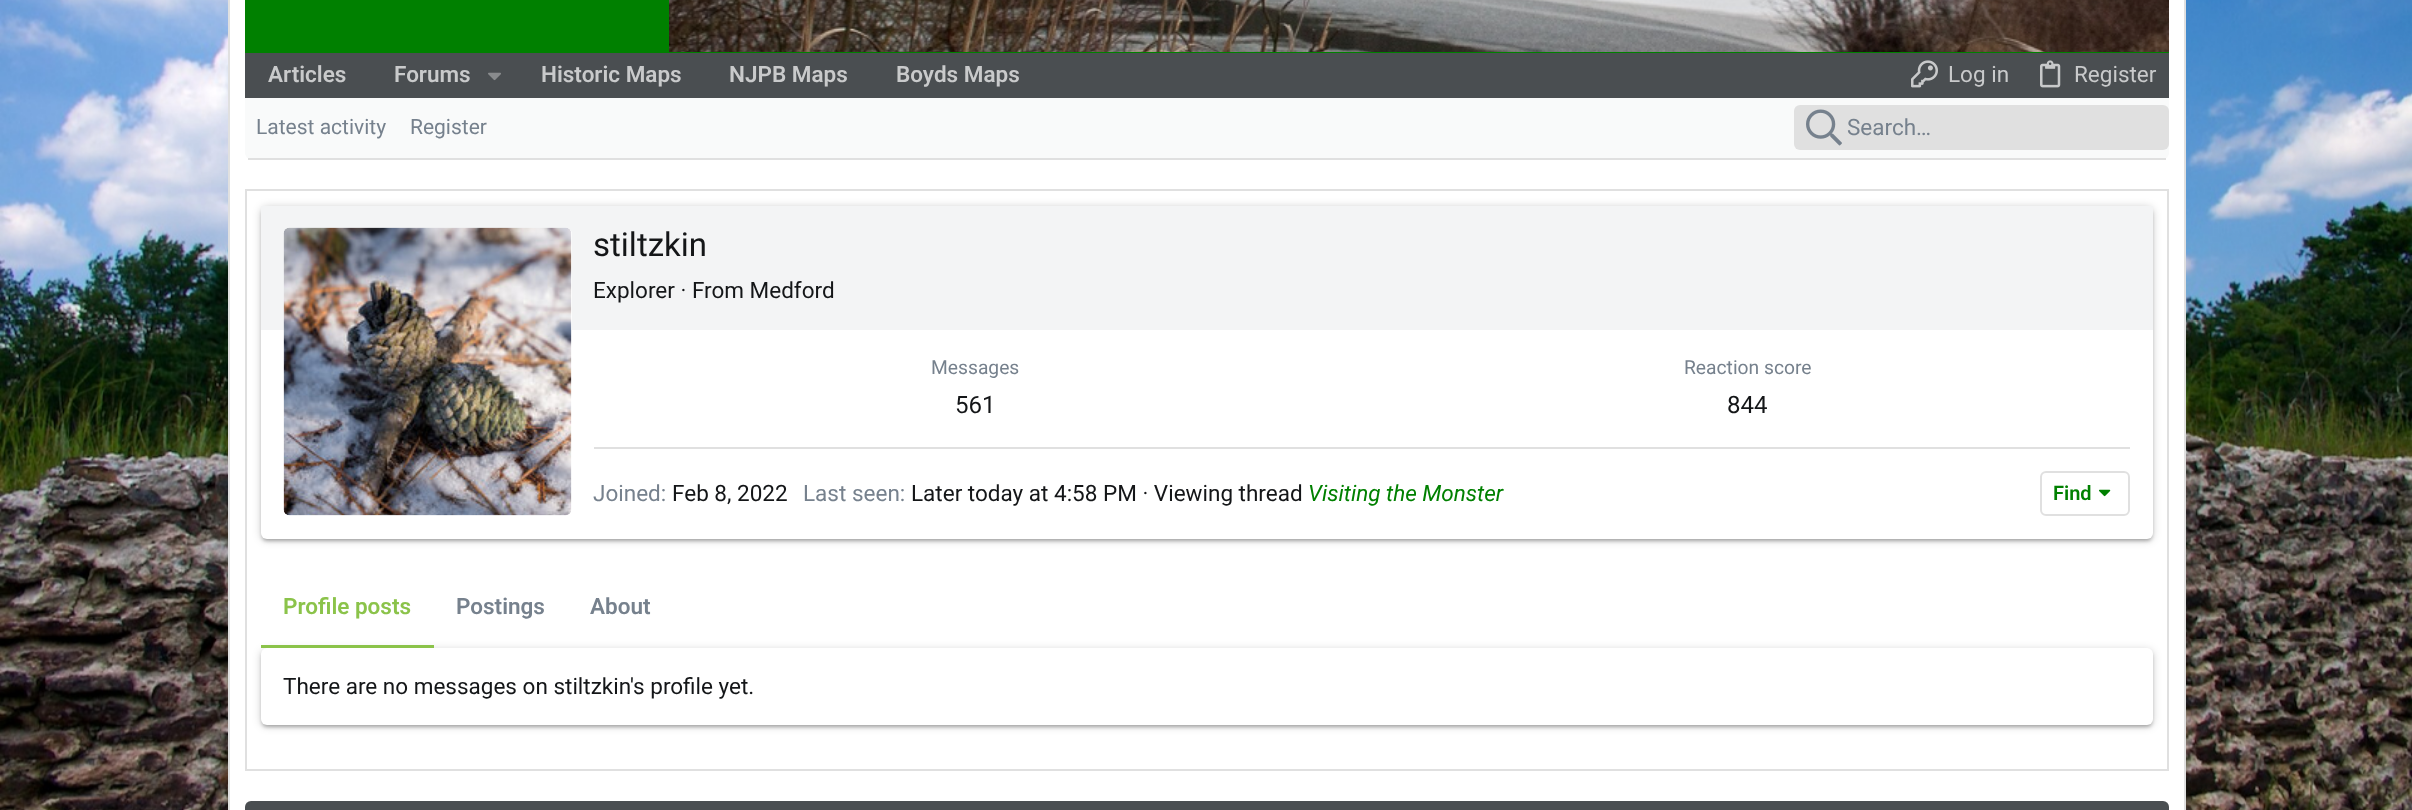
<!DOCTYPE html>
<meta charset="utf-8">
<style>body { margin: 0 } canvas { display: block }</style>
<canvas id="canvas" width="2412" height="810"></canvas>
<img id="img1" src="images/1.png" hidden>
<img id="img2" src="images/2.png" hidden>
<img id="img3" src="images/3.png" hidden>
<img id="img4" src="images/4.png" hidden>
<img id="img5" src="images/5.png" hidden>
<img id="img6" src="images/6.png" hidden>
<img id="img7" src="images/7.png" hidden>
<img id="img8" src="images/8.png" hidden>
<script>
window.onload = function () {
    const canvas = document.getElementById('canvas');
    const context = canvas.getContext('2d');
    context.miterLimit = 4;
    context.fontKerning = 'normal';

    context.fillStyle = 'rgb(255, 255, 255)';
    context.fillRect(0, 0, 2412, 810);
    context.drawImage(document.getElementById('img1'), 0, 0, 2412, 810);
    context.beginPath();
    context.rect(229, -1, 1956, 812);
    context.fill();
    context.strokeStyle = 'rgb(224, 224, 224)';
    context.lineWidth = 2;
    context.stroke();
    context.fillStyle = 'rgb(0, 128, 0)';
    context.fillRect(245, 0, 1924, 53);
    context.drawImage(document.getElementById('img2'), 669, 0, 1500, 52);
    context.fillStyle = 'rgb(74, 78, 81)';
    context.fillRect(245, 53, 1924, 45);
    context.drawImage(document.getElementById('img3'), 488, 72, 13, 9);
    context.drawImage(document.getElementById('img4'), 1911, 60, 27, 28);
    context.drawImage(document.getElementById('img5'), 2040, 60, 21, 28);
    context.fillStyle = 'rgb(249, 250, 250)';
    context.beginPath();
    context.roundRect(245, 98, 1924, 61, [0, 0, 6, 6]);
    context.fill();
    context.fillStyle = 'rgb(224, 224, 224)';
    context.fillRect(248, 158, 1918, 2);
    context.beginPath();
    context.roundRect(1794, 105, 375, 45, 6);
    context.fill();
    context.drawImage(document.getElementById('img6'), 1806, 109, 36, 37);
    context.strokeRect(246, 190, 1922, 580);
    context.fillStyle = 'rgba(0, 0, 0, 0.2)';
    context.filter = 'blur(4px)';
    context.beginPath();
    context.roundRect(261, 207, 1892, 333, 6);
    context.fill();
    context.filter = 'none';
    context.fillStyle = 'rgba(0, 0, 0, 0.12)';
    context.filter = 'blur(1px)';
    context.beginPath();
    context.roundRect(264, 213, 1886, 327, 3);
    context.fill();
    context.filter = 'none';
    context.fillStyle = 'rgba(0, 0, 0, 0.14)';
    context.filter = 'blur(1.5px)';
    context.beginPath();
    context.roundRect(261, 209, 1892, 333, 6);
    context.fill();
    context.filter = 'none';
    context.fillStyle = 'rgb(255, 255, 255)';
    context.beginPath();
    context.roundRect(261, 206, 1892, 333, 6);
    context.fill();
    context.fillStyle = 'rgb(243, 244, 245)';
    context.fillRect(261, 206, 1892, 124);
    context.fillStyle = 'rgb(255, 255, 255)';
    context.beginPath();
    context.roundRect(284, 228, 288, 288, 6);
    context.fill();
    context.drawImage(document.getElementById('img7'), 283, 227, 289, 289);
    context.fillStyle = 'rgb(224, 224, 224)';
    context.fillRect(594, 447, 1536, 2);
    context.beginPath();
    context.roundRect(2041, 472, 88, 43, 5);
    context.stroke();
    context.drawImage(document.getElementById('img8'), 2099, 489, 12, 8);
    context.fillStyle = 'rgba(0, 0, 0, 0.2)';
    context.filter = 'blur(4px)';
    context.beginPath();
    context.roundRect(261, 650, 1892, 76, 6);
    context.fill();
    context.filter = 'none';
    context.fillStyle = 'rgba(0, 0, 0, 0.14)';
    context.filter = 'blur(1.5px)';
    context.beginPath();
    context.roundRect(261, 651, 1892, 77, 6);
    context.fill();
    context.filter = 'none';
    context.fillStyle = 'rgb(139, 195, 74)';
    context.fillRect(261, 645, 173, 3);
    context.fillStyle = 'rgba(0, 0, 0, 0.12)';
    context.filter = 'blur(1px)';
    context.beginPath();
    context.roundRect(264, 656, 1886, 70, 3);
    context.fill();
    context.filter = 'none';
    context.fillStyle = 'rgb(255, 255, 255)';
    context.beginPath();
    context.roundRect(261, 648, 1892, 77, 6);
    context.fill();
    context.fillStyle = 'rgb(74, 78, 81)';
    context.beginPath();
    context.roundRect(245, 801, 1924, 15, 6);
    context.fill();
    context.font = '600 22.5px Roboto';
    context.fillStyle = 'rgb(201, 202, 203)';
    context.fillText('Articles', 268, 82);
    context.fillText('Forums', 394, 82);
    context.fillText('Historic Maps', 541, 82);
    context.fillText('NJPB Maps', 729, 82);
    context.fillText('Boyds Maps', 896, 82);
    context.font = '22.5px Roboto';
    context.fillText('Log in', 1948, 82);
    context.fillText('Register', 2074, 82);
    context.font = '21px Roboto';
    context.fillStyle = 'rgb(118, 129, 141)';
    context.fillText('Latest activity', 256, 134);
    context.fillText('Register', 410, 134);
    context.font = '22.5px Roboto';
    context.fillText('Search…', 1847, 135);
    context.font = '33px Roboto';
    context.fillStyle = 'rgb(20, 22, 24)';
    context.fillText('stiltzkin', 593, 256);
    context.font = '22.5px Roboto';
    context.fillText('Explorer · From Medford', 593, 298);
    context.font = '19.25px Roboto';
    context.fillStyle = 'rgb(118, 129, 141)';
    context.fillText('Messages', 931, 374);
    context.font = '24px Roboto';
    context.fillStyle = 'rgb(20, 22, 24)';
    context.fillText('561', 955, 413);
    context.font = '19.25px Roboto';
    context.fillStyle = 'rgb(118, 129, 141)';
    context.fillText('Reaction score', 1684, 374);
    context.font = '24px Roboto';
    context.fillStyle = 'rgb(20, 22, 24)';
    context.fillText('844', 1727, 413);
    context.font = '22.5px Roboto';
    context.fillStyle = 'rgb(118, 129, 141)';
    context.fillText('Joined:', 593, 501);
    context.fillStyle = 'rgb(20, 22, 24)';
    context.fillText('Feb 8, 2022', 672, 501);
    context.fillStyle = 'rgb(118, 129, 141)';
    context.fillText('Last seen:', 803, 501);
    context.fillStyle = 'rgb(20, 22, 24)';
    context.fillText('Later today at 4:58 PM · Viewing thread', 911, 501);
    context.font = 'italic 22.5px Roboto';
    context.fillStyle = 'rgb(0, 128, 0)';
    context.fillText('Visiting the Monster', 1308, 501);
    context.font = '600 20px Roboto';
    context.fillText('Find', 2053, 500);
    context.font = '600 22.5px Roboto';
    context.fillStyle = 'rgb(139, 195, 74)';
    context.fillText('Profile posts', 283, 614);
    context.fillStyle = 'rgb(118, 129, 141)';
    context.fillText('Postings', 456, 614);
    context.fillText('About', 590, 614);
    context.font = '22.5px Roboto';
    context.fillStyle = 'rgb(20, 22, 24)';
    context.fillText('There are no messages on stiltzkin\'s profile yet.', 283, 694);
};
</script>
